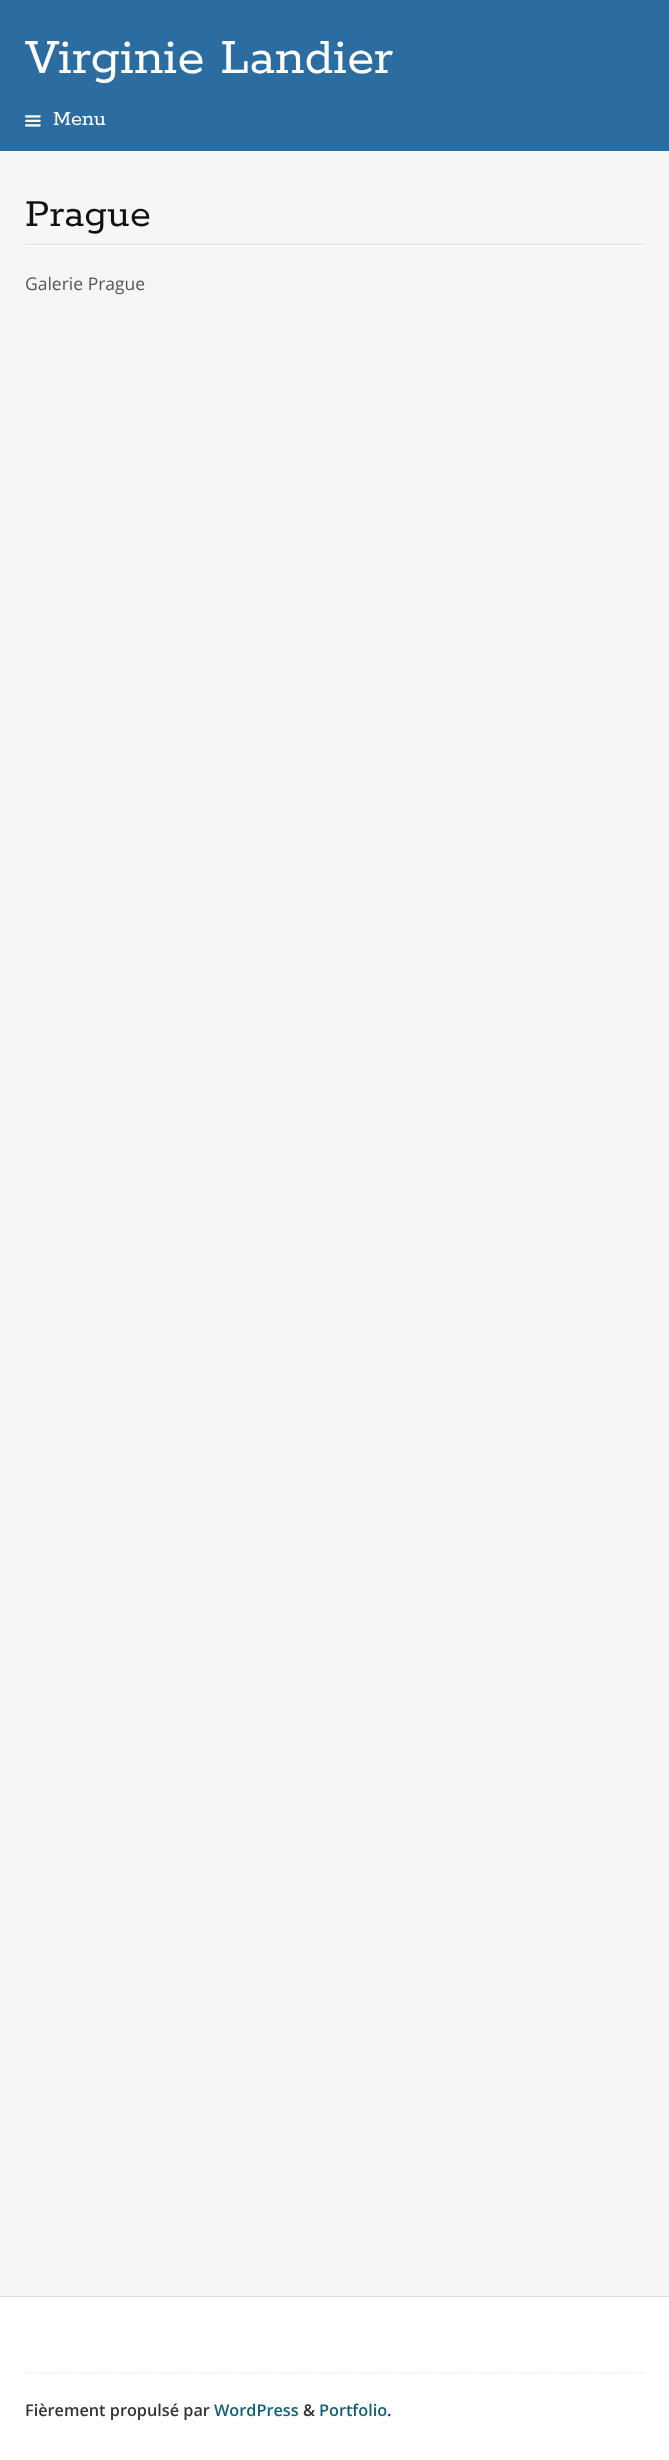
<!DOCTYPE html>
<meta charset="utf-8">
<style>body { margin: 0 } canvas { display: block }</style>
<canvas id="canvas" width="669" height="2460"></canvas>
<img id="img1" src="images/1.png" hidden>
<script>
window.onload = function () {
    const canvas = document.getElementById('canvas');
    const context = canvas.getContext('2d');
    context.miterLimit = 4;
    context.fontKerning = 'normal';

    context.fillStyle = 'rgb(246, 246, 246)';
    context.fillRect(0, 0, 669, 2460);
    context.fillStyle = 'rgb(43, 109, 160)';
    context.fillRect(0, 0, 669, 151);
    context.drawImage(document.getElementById('img1'), 25, 115, 16, 12);
    context.fillStyle = 'rgb(255, 255, 255)';
    context.fillRect(25, 245, 620, 1);
    context.fillStyle = 'rgb(221, 221, 221)';
    context.fillRect(25, 244, 620, 1);
    context.fillStyle = 'rgb(255, 255, 255)';
    context.fillRect(0, 2297, 669, 163);
    context.fillStyle = 'rgb(221, 221, 221)';
    context.fillRect(0, 2296, 669, 1);
    context.beginPath();
    context.moveTo(25, 2373);
    context.lineTo(645, 2373);
    context.strokeStyle = 'rgb(221, 221, 221)';
    context.lineWidth = 1.2;
    context.setLineDash([1.25, 1.25]);
    context.stroke();
    context.font = '55px Rokkitt';
    context.fillStyle = 'rgb(255, 255, 255)';
    context.fillText('Virginie Landier', 25, 73);
    context.font = '22.5px Rokkitt';
    context.fillText('Menu', 53, 125);
    context.font = '42.5px Rokkitt';
    context.fillStyle = 'rgb(17, 17, 17)';
    context.fillText('Prague', 25, 226);
    context.font = '17.5px Open Sans';
    context.fillStyle = 'rgb(85, 85, 85)';
    context.fillText('Galerie Prague', 25, 290);
    context.font = '600 16.25px Open Sans';
    context.fillStyle = 'rgb(51, 51, 51)';
    context.fillText('Fièrement propulsé par', 25, 2416);
    context.fillStyle = 'rgb(16, 97, 119)';
    context.fillText('WordPress', 214, 2416);
    context.fillStyle = 'rgb(51, 51, 51)';
    context.fillText('&', 303, 2416);
    context.fillStyle = 'rgb(16, 97, 119)';
    context.fillText('Portfolio', 319, 2416);
    context.fillStyle = 'rgb(51, 51, 51)';
    context.fillText('.', 387, 2416);
};
</script>
